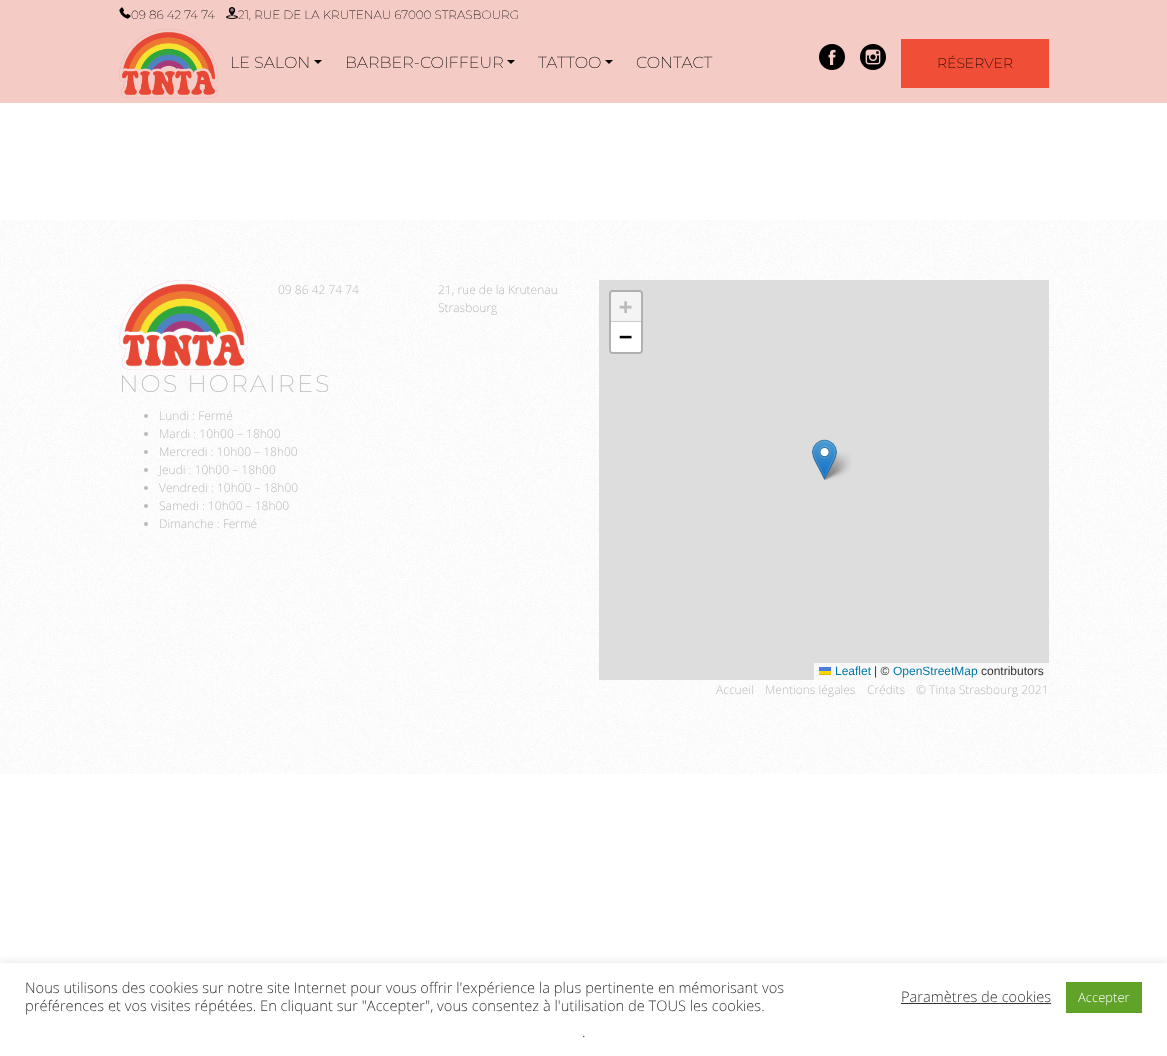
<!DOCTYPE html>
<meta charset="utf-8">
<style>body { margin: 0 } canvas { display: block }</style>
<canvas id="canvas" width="1167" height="1056"></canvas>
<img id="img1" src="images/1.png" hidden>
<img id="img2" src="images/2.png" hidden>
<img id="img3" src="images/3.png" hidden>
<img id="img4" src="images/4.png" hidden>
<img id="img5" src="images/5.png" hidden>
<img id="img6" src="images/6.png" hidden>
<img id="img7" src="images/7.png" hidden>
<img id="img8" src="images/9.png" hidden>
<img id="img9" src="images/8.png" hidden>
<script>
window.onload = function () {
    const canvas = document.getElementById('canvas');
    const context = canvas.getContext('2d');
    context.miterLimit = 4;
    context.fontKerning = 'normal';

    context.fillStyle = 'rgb(255, 255, 255)';
    context.fillRect(0, 0, 1167, 1056);
    context.fillStyle = 'rgb(245, 203, 198)';
    context.fillRect(0, 0, 1167, 103);
    context.drawImage(document.getElementById('img1'), 119, 7, 12, 12);
    context.drawImage(document.getElementById('img2'), 226, 7, 12, 12);
    context.drawImage(document.getElementById('img3'), 119, 29, 99, 69);
    context.fillStyle = 'rgb(0, 0, 0)';
    context.beginPath();
    context.moveTo(314, 60);
    context.lineTo(322, 60);
    context.lineTo(318, 64);
    context.closePath();
    context.fill();
    context.beginPath();
    context.moveTo(507, 60);
    context.lineTo(515, 60);
    context.lineTo(511, 64);
    context.closePath();
    context.fill();
    context.beginPath();
    context.moveTo(605, 60);
    context.lineTo(613, 60);
    context.lineTo(609, 64);
    context.closePath();
    context.fill();
    context.drawImage(document.getElementById('img4'), 819, 44, 26, 26);
    context.drawImage(document.getElementById('img5'), 860, 44, 26, 26);
    context.fillStyle = 'rgb(240, 78, 55)';
    context.fillRect(901, 39, 148, 49);
    context.drawImage(document.getElementById('img6'), 0, 220, 1167, 554);
    context.drawImage(document.getElementById('img7'), 119, 280, 129, 90);
    context.fillStyle = 'rgb(186, 186, 186)';
    context.beginPath();
    context.arc(146, 416, 2, 0, 2 * Math.PI);
    context.fill();
    context.beginPath();
    context.arc(146, 434, 2, 0, 2 * Math.PI);
    context.fill();
    context.beginPath();
    context.arc(146, 452, 2, 0, 2 * Math.PI);
    context.fill();
    context.beginPath();
    context.arc(146, 470, 2, 0, 2 * Math.PI);
    context.fill();
    context.beginPath();
    context.arc(146, 488, 2, 0, 2 * Math.PI);
    context.fill();
    context.beginPath();
    context.arc(146, 506, 2, 0, 2 * Math.PI);
    context.fill();
    context.beginPath();
    context.arc(146, 524, 2, 0, 2 * Math.PI);
    context.fill();
    context.fillStyle = 'rgb(221, 221, 221)';
    context.fillRect(599, 280, 450, 400);
    context.beginPath();
    context.roundRect(610, 291, 32, 62, 3);
    context.strokeStyle = 'rgb(177, 177, 177)';
    context.lineWidth = 2;
    context.stroke();
    context.fillStyle = 'rgb(244, 244, 244)';
    context.beginPath();
    context.roundRect(611, 292, 30, 30, [2, 2, 0, 0]);
    context.fill();
    context.fillStyle = 'rgb(204, 204, 204)';
    context.fillRect(611, 321, 30, 1);
    context.fillStyle = 'rgb(255, 255, 255)';
    context.beginPath();
    context.roundRect(611, 322, 30, 30, [0, 0, 2, 2]);
    context.fill();
    context.fillStyle = 'rgb(248, 248, 248)';
    context.fillRect(814, 663, 235, 17);
    context.fillStyle = 'rgb(76, 123, 225)';
    context.fillRect(819, 667, 12, 4);
    context.fillStyle = 'rgb(255, 213, 0)';
    context.fillRect(819, 671, 12, 3);
    context.fillStyle = 'rgb(224, 188, 0)';
    context.fillRect(819, 674, 12, 1);
    context.drawImage(document.getElementById('img8'), 822, 452, 29, 28);
    context.drawImage(document.getElementById('img9'), 812, 439, 25, 41);
    context.save();
    context.beginPath();
    context.rect(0, 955, 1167, 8);
    context.clip();
    context.fillStyle = 'rgba(172, 171, 171, 0.3)';
    context.filter = 'blur(5px)';
    context.beginPath();
    context.rect(0, 962, 1167, 93);
    context.fill();
    context.filter = 'none';
    context.restore();
    context.fillStyle = 'rgb(51, 51, 51)';
    context.fillRect(901, 1003, 150, 1);
    context.fillStyle = 'rgb(97, 162, 41)';
    context.fillRect(1066, 982, 76, 31);
    context.font = '200 12px Montserrat';
    context.fillStyle = 'rgb(0, 0, 0)';
    context.fillText('09 86 42 74 74', 131, 19);
    context.fillText('21, RUE DE LA KRUTENAU 67000 STRASBOURG', 238, 19);
    context.font = '200 16px Montserrat';
    context.fillText('LE SALON', 230, 68);
    context.fillText('BARBER-COIFFEUR', 345, 68);
    context.fillText('TATTOO', 538, 68);
    context.fillText('CONTACT', 636, 68);
    context.font = '200 14px Montserrat';
    context.fillText('RÉSERVER', 937, 68);
    context.font = '300 12px Open Sans';
    context.fillStyle = 'rgb(186, 186, 186)';
    context.fillText('09 86 42 74 74', 278, 294);
    context.fillText('21, rue de la Krutenau', 438, 294);
    context.fillText('Strasbourg', 438, 312);
    context.letterSpacing = '2px';
    context.font = '200 24px Montserrat';
    context.fillText('NOS HORAIRES', 119, 392);
    context.letterSpacing = '0px';
    context.font = '300 12px Open Sans';
    context.fillText('Lundi : Fermé', 159, 420);
    context.fillText('Mardi : 10h00 – 18h00', 159, 438);
    context.fillText('Mercredi : 10h00 – 18h00', 159, 456);
    context.fillText('Jeudi : 10h00 – 18h00', 159, 474);
    context.fillText('Vendredi : 10h00 – 18h00', 159, 492);
    context.fillText('Samedi : 10h00 – 18h00', 159, 510);
    context.fillText('Dimanche : Fermé', 159, 528);
    context.font = 'bold 22px DejaVu Sans Mono';
    context.fillText('+', 619, 314);
    context.fillStyle = 'rgb(0, 0, 0)';
    context.fillText('−', 619, 344);
    context.font = '12px Liberation Sans';
    context.fillStyle = 'rgb(0, 120, 168)';
    context.fillText('Leaflet', 835, 675);
    context.fillStyle = 'rgb(51, 51, 51)';
    context.fillText('| ©', 874, 675);
    context.fillStyle = 'rgb(0, 120, 168)';
    context.fillText('OpenStreetMap', 893, 675);
    context.fillStyle = 'rgb(51, 51, 51)';
    context.fillText('contributors', 981, 675);
    context.font = '300 12px Open Sans';
    context.fillStyle = 'rgb(186, 186, 186)';
    context.fillText('Accueil', 716, 694);
    context.fillText('Mentions légales', 765, 694);
    context.fillText('Crédits', 867, 694);
    context.fillText('© Tinta Strasbourg 2021', 916, 694);
    context.font = '300 14.67px Open Sans';
    context.fillStyle = 'rgb(51, 51, 51)';
    context.fillText('Nous utilisons des cookies sur notre site Internet pour vous offrir l\'expérience la plus pertinente en mémorisant vos', 25, 993);
    context.fillText('préférences et vos visites répétées. En cliquant sur "Accepter", vous consentez à l\'utilisation de TOUS les cookies.', 25, 1011);
    context.fillText('Paramètres de cookies', 901, 1002);
    context.font = '300 13px Open Sans';
    context.fillStyle = 'rgb(255, 255, 255)';
    context.fillText('Accepter', 1078, 1002);
    context.font = '300 15px Open Sans';
    context.fillStyle = 'rgb(51, 51, 51)';
    context.fillText('.', 582, 1037);
};
</script>
